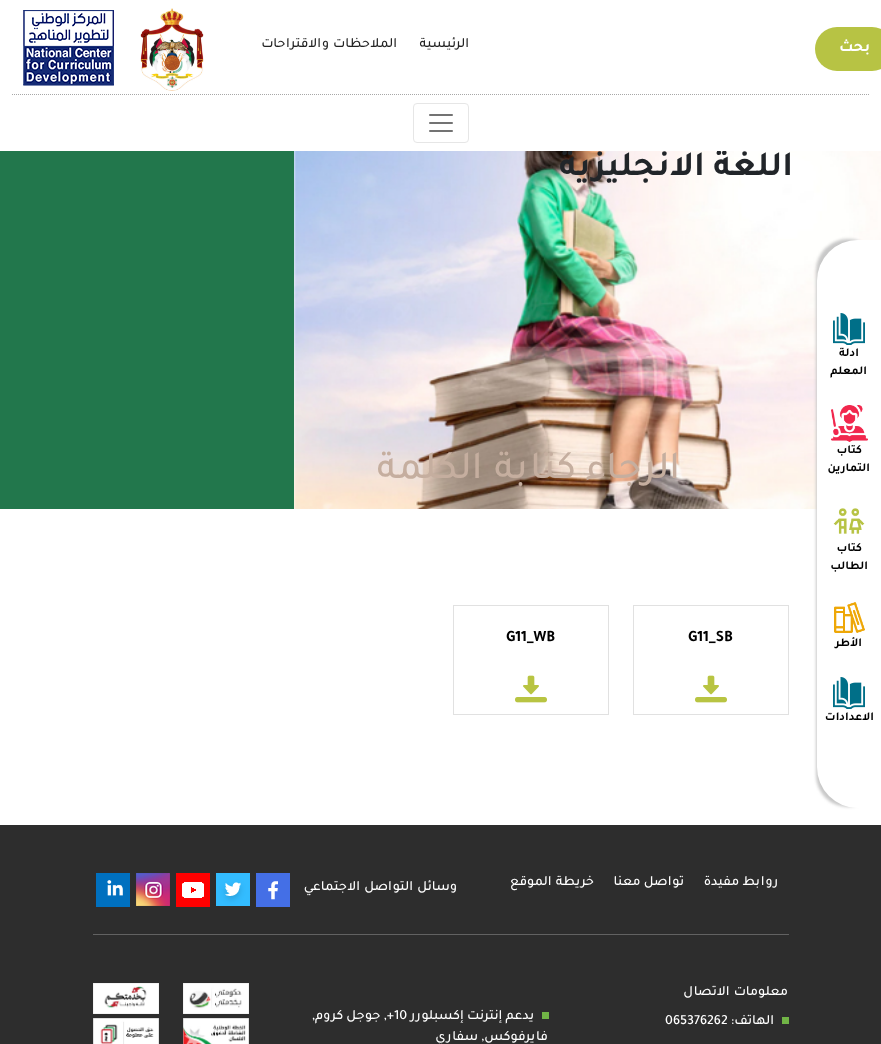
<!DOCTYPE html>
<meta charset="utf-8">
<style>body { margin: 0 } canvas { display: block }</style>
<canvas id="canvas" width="881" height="1044"></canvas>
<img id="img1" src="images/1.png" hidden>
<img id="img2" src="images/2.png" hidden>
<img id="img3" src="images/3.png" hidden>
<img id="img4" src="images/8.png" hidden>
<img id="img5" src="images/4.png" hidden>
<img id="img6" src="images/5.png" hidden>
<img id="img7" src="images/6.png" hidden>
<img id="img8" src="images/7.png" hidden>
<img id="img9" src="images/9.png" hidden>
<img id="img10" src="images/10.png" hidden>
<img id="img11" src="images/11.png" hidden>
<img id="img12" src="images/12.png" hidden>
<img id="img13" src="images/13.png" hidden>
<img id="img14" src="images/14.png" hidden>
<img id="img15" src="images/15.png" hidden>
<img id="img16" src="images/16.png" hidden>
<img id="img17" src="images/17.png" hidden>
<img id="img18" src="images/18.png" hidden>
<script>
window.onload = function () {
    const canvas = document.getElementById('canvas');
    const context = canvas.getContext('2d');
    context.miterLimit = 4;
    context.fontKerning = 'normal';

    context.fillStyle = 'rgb(255, 255, 255)';
    context.fillRect(0, 0, 881, 1044);
    context.fillStyle = 'rgb(183, 195, 68)';
    context.beginPath();
    context.roundRect(815, 27, 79, 44, 22);
    context.fill();
    context.drawImage(document.getElementById('img1'), 140, 8, 64, 83);
    context.drawImage(document.getElementById('img2'), 23, 10, 91, 76);
    context.beginPath();
    context.moveTo(12, 94.5);
    context.lineTo(869, 94.5);
    context.strokeStyle = 'rgb(167, 167, 167)';
    context.setLineDash([1, 1]);
    context.stroke();
    context.beginPath();
    context.roundRect(413.5, 103.5, 55, 39, 3.5);
    context.strokeStyle = 'rgb(230, 230, 230)';
    context.setLineDash([]);
    context.stroke();
    context.drawImage(document.getElementById('img3'), 429, 114, 24, 18);
    context.drawImage(document.getElementById('img4'), 294, 151, 587, 358);
    context.fillStyle = 'rgb(200, 200, 200)';
    context.filter = 'blur(1.5px)';
    context.beginPath();
    context.roundRect(816, 239, 64, 568, 41);
    context.fill();
    context.filter = 'none';
    context.fillStyle = 'rgb(255, 255, 255)';
    context.beginPath();
    context.roundRect(817, 240, 64, 568, [41, 0, 0, 41]);
    context.fill();
    context.drawImage(document.getElementById('img5'), 833, 313, 32, 32);
    context.drawImage(document.getElementById('img6'), 831, 405, 37, 37);
    context.drawImage(document.getElementById('img7'), 833, 508, 32, 26);
    context.drawImage(document.getElementById('img8'), 834, 602, 31, 31);
    context.drawImage(document.getElementById('img5'), 833, 677, 32, 32);
    context.fillStyle = 'rgb(34, 119, 76)';
    context.fillRect(0, 151, 294, 358);
    context.strokeStyle = 'rgb(225, 225, 225)';
    context.strokeRect(633.5, 605.5, 155, 109);
    context.drawImage(document.getElementById('img9'), 695, 675, 32, 28);
    context.strokeRect(453.5, 605.5, 155, 109);
    context.drawImage(document.getElementById('img9'), 515, 675, 32, 28);
    context.fillStyle = 'rgb(45, 45, 45)';
    context.fillRect(0, 825, 881, 219);
    context.drawImage(document.getElementById('img10'), 256, 873, 34, 34);
    context.drawImage(document.getElementById('img11'), 216, 873, 34, 33);
    context.drawImage(document.getElementById('img12'), 176, 873, 34, 34);
    context.drawImage(document.getElementById('img13'), 136, 873, 34, 33);
    context.drawImage(document.getElementById('img14'), 96, 873, 34, 34);
    context.fillStyle = 'rgb(98, 98, 98)';
    context.fillRect(93, 934, 696, 1);
    context.fillStyle = 'rgb(113, 180, 70)';
    context.fillRect(782, 1017, 7, 7);
    context.fillRect(542, 1012, 7, 7);
    context.drawImage(document.getElementById('img15'), 183, 983, 66, 31);
    context.drawImage(document.getElementById('img16'), 93, 983, 66, 31);
    context.drawImage(document.getElementById('img17'), 183, 1018, 66, 26);
    context.drawImage(document.getElementById('img18'), 93, 1018, 66, 26);
    context.direction = 'rtl';
    context.font = 'bold 16px Tajawal';
    context.fillStyle = 'rgb(255, 255, 255)';
    context.fillText('بحث', 870, 51);
    context.font = '500 40px Tajawal';
    context.fillStyle = 'rgb(197, 174, 159)';
    context.fillText('الرجاء كتابة الكلمة', 680, 478);
    context.font = '500 14px Tajawal';
    context.fillStyle = 'rgb(35, 35, 35)';
    context.fillText('الرئيسية', 469, 47);
    context.fillText('الملاحظات والاقتراحات', 397, 47);
    context.font = 'bold 12px Tajawal';
    context.fillStyle = 'rgb(0, 0, 0)';
    context.fillText('ادلة', 859, 356);
    context.fillText('المعلم', 867, 374);
    context.fillText('كتاب', 862, 453);
    context.fillText('التمارين', 870, 471);
    context.fillText('كتاب', 862, 551);
    context.fillText('الطالب', 868, 569);
    context.fillText('الأطر', 862, 646);
    context.fillText('الاعدادات', 874, 720);
    context.font = 'bold 35.25px Tajawal';
    context.fillStyle = 'rgb(33, 37, 41)';
    context.fillText('اللغة الانجليزية', 793, 175);
    context.fillStyle = 'rgb(255, 255, 255)';
    context.fillRect(563, 150, 163, 1);
    context.direction = 'ltr';
    context.font = 'bold 16px Tajawal';
    context.fillStyle = 'rgb(0, 0, 0)';
    context.fillText('G11_SB', 688, 641);
    context.fillText('G11_WB', 506, 641);
    context.direction = 'rtl';
    context.font = '500 14px Tajawal';
    context.fillStyle = 'rgb(255, 255, 255)';
    context.fillText('روابط مفيدة', 778, 885);
    context.fillText('تواصل معنا', 684, 885);
    context.fillText('خريطة الموقع', 594, 885);
    context.fillText('وسائل التواصل الاجتماعي', 457, 890);
    context.fillText('معلومات الاتصال', 788, 995);
    context.fillText('الهاتف:', 774, 1024);
    context.direction = 'ltr';
    context.fillText('065376262', 665, 1024);
    context.direction = 'rtl';
    context.fillText('يدعم إنترنت إكسبلورر', 534, 1019);
    context.direction = 'ltr';
    context.fillText('10', 394, 1019);
    context.direction = 'rtl';
    context.fillText('+, جوجل كروم,', 394, 1019);
    context.fillText('فايرفوكس, سفاري', 548, 1040);
};
</script>
